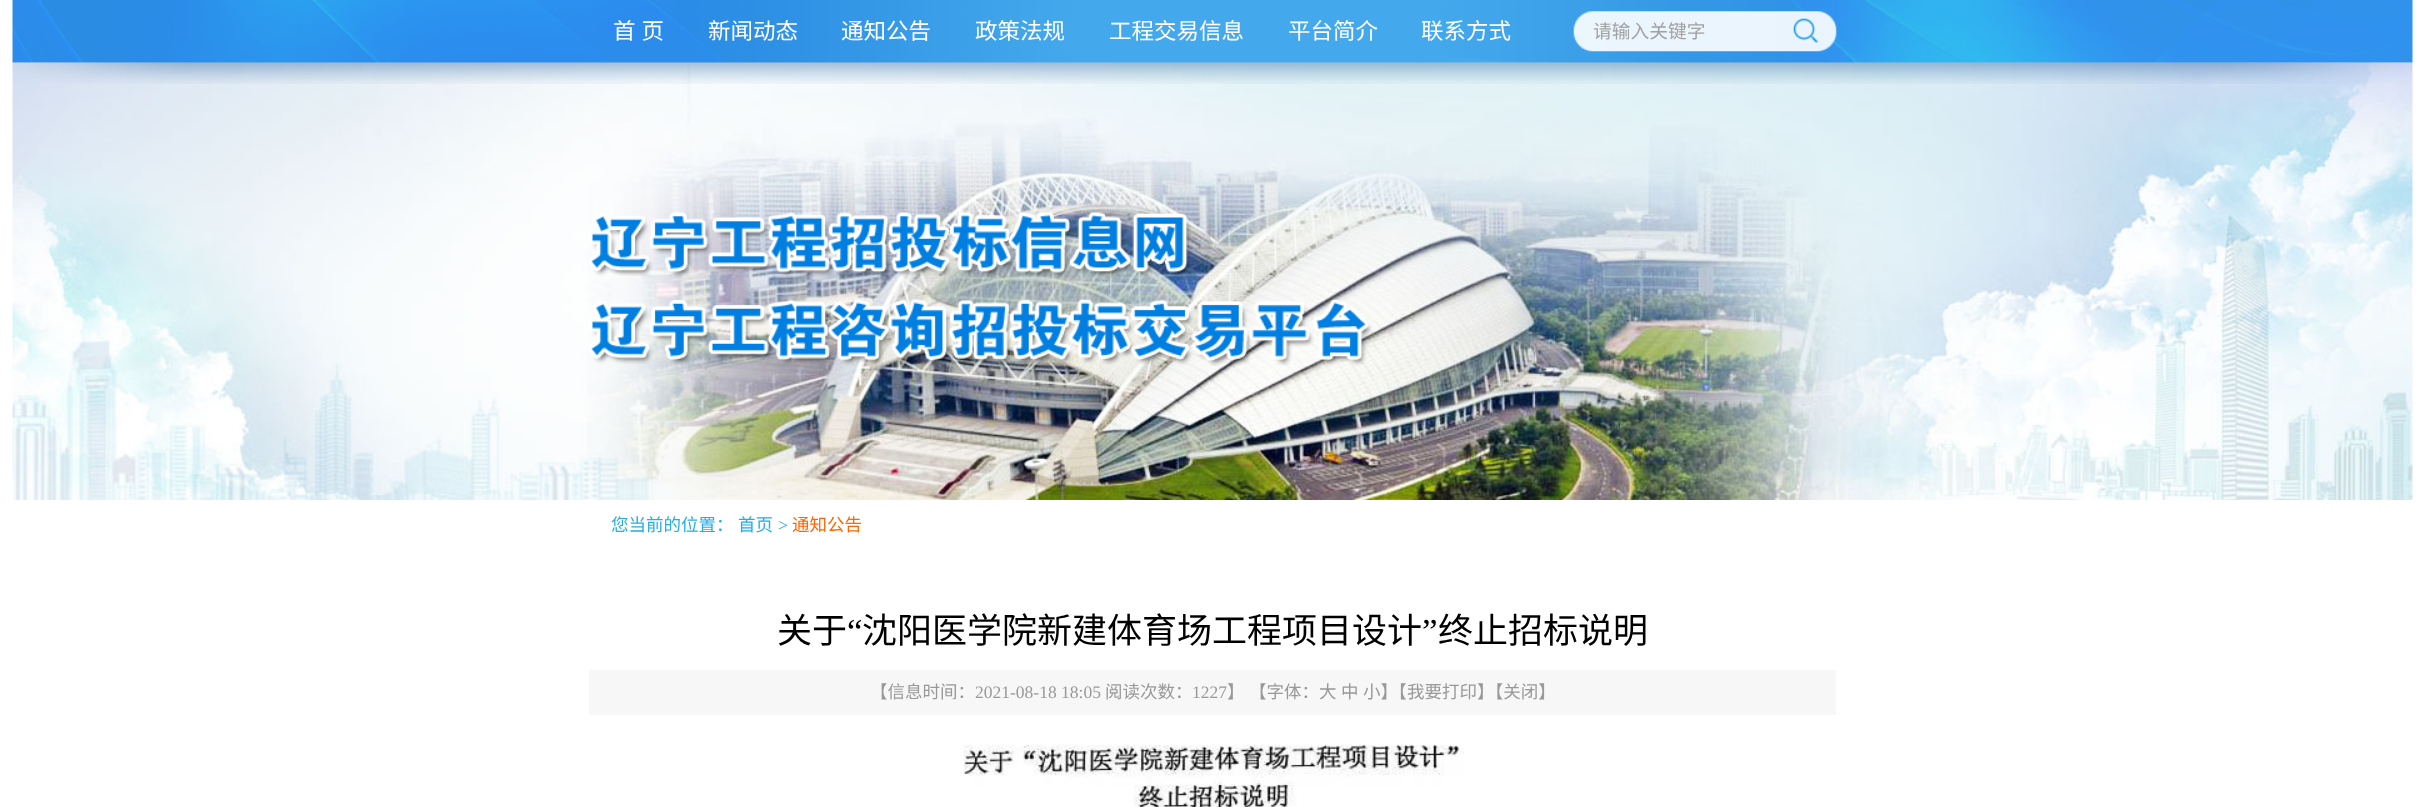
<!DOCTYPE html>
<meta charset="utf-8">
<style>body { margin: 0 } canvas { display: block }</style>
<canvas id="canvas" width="2424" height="807"></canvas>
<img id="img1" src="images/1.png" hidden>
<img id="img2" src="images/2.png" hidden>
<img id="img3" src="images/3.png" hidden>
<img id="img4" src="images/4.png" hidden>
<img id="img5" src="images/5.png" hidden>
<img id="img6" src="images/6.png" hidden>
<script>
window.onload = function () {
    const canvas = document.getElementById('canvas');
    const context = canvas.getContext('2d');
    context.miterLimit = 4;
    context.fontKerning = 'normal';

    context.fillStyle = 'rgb(255, 255, 255)';
    context.fillRect(0, 0, 2424, 807);
    context.drawImage(document.getElementById('img1'), 12, 62, 2401, 438);
    context.drawImage(document.getElementById('img2'), 12, 0, 2401, 84);
    context.drawImage(document.getElementById('img3'), 1573, 11, 264, 41);
    context.drawImage(document.getElementById('img4'), 1793, 18, 25, 25);
    context.drawImage(document.getElementById('img5'), 589, 212, 783, 154);
    context.fillStyle = 'rgb(247, 247, 247)';
    context.fillRect(589, 670, 1247, 45);
    context.drawImage(document.getElementById('img6'), 963, 744, 501, 63);
    context.wordSpacing = '1px';
    context.font = '22.5px Noto Sans CJK SC';
    context.fillStyle = 'rgb(255, 254, 254)';
    context.fillText('首 页', 613, 39);
    context.wordSpacing = '0px';
    context.fillText('新闻动态', 708, 39);
    context.fillText('通知公告', 841, 39);
    context.fillText('政策法规', 975, 39);
    context.fillText('工程交易信息', 1109, 39);
    context.fillText('平台简介', 1288, 39);
    context.fillText('联系方式', 1421, 39);
    context.font = '18.75px Noto Sans CJK SC';
    context.fillStyle = 'rgb(162, 162, 162)';
    context.fillText('请输入关键字', 1593, 38);
    context.font = '17.5px Noto Sans CJK SC';
    context.fillStyle = 'rgb(37, 174, 226)';
    context.fillText('您当前的位置：', 611, 531);
    context.fillText('首页', 738, 531);
    context.font = '17.5px Liberation Serif';
    context.fillText('>', 778, 531);
    context.font = '17.5px Noto Sans CJK SC';
    context.fillStyle = 'rgb(255, 102, 0)';
    context.fillText('通知公告', 792, 531);
    context.font = '35px Noto Sans CJK SC';
    context.fillStyle = 'rgb(0, 0, 0)';
    context.fillText('关于', 777, 643);
    context.font = '35px Liberation Serif';
    context.fillText('“', 847, 643);
    context.font = '35px Noto Sans CJK SC';
    context.fillText('沈阳医学院新建体育场工程项目设计', 862, 643);
    context.font = '35px Liberation Serif';
    context.fillText('”', 1422, 643);
    context.font = '35px Noto Sans CJK SC';
    context.fillText('终止招标说明', 1438, 643);
    context.font = '17.5px Noto Sans CJK SC';
    context.fillStyle = 'rgb(153, 153, 153)';
    context.fillText('【信息时间：', 870, 698);
    context.font = '17.5px Liberation Serif';
    context.fillText('2021-08-18 18:05', 975, 698);
    context.font = '17.5px Noto Sans CJK SC';
    context.fillText('阅读次数：', 1105, 698);
    context.font = '17.5px Liberation Serif';
    context.fillText('1227', 1192, 698);
    context.font = '17.5px Noto Sans CJK SC';
    context.fillText('】', 1227, 698);
    context.fillText('【字体：大', 1249, 698);
    context.fillText('中', 1341, 698);
    context.fillText('小】【', 1363, 698);
    context.fillText('我要打印】【关闭】', 1407, 698);
};
</script>
